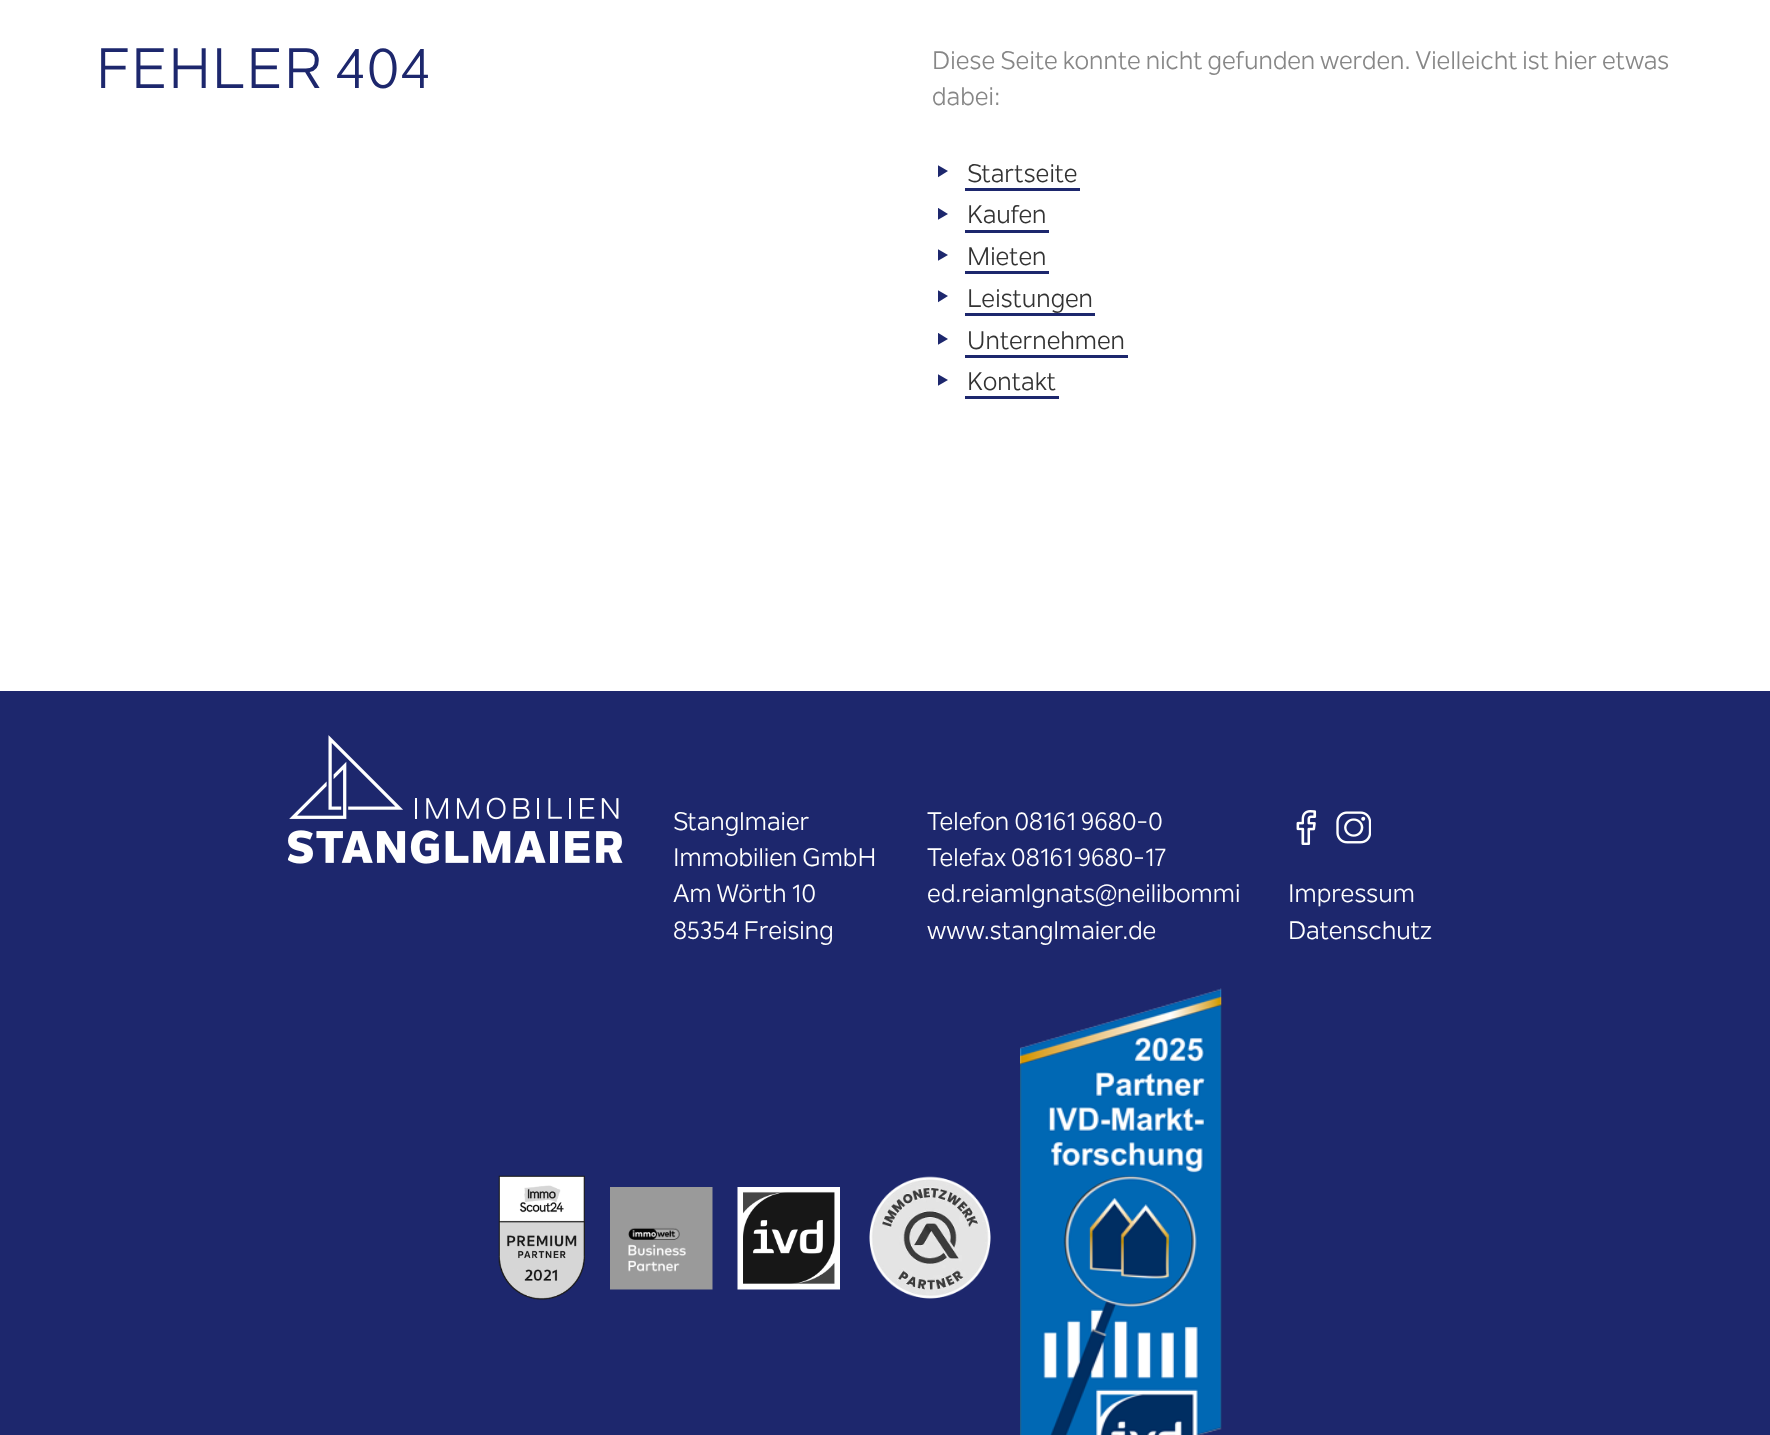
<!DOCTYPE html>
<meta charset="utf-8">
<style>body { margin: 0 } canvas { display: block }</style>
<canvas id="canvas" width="1770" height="1435"></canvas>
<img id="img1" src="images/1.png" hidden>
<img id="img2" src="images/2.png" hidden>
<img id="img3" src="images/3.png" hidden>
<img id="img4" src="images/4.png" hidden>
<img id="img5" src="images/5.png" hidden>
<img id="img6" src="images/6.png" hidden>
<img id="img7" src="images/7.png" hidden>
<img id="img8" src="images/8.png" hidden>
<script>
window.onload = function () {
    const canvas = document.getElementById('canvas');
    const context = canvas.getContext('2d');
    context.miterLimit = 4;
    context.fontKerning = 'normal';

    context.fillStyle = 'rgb(255, 255, 255)';
    context.fillRect(0, 0, 1770, 1435);
    context.save();
    context.beginPath();
    context.rect(938, 165, 11, 13);
    context.clip();
    context.fillStyle = 'rgb(29, 39, 109)';
    context.beginPath();
    context.moveTo(937.5, 177.5);
    context.lineTo(937.5, 165);
    context.lineTo(948, 171);
    context.closePath();
    context.fill();
    context.restore();
    context.fillStyle = 'rgb(29, 39, 109)';
    context.fillRect(965, 188, 115, 3);
    context.save();
    context.beginPath();
    context.rect(938, 208, 11, 12);
    context.clip();
    context.beginPath();
    context.moveTo(937.5, 220);
    context.lineTo(937.5, 207.5);
    context.lineTo(948, 214);
    context.closePath();
    context.fill();
    context.restore();
    context.fillRect(965, 230, 84, 3);
    context.save();
    context.beginPath();
    context.rect(938, 249, 11, 12);
    context.clip();
    context.beginPath();
    context.moveTo(937.5, 261);
    context.lineTo(937.5, 249);
    context.lineTo(948, 255);
    context.closePath();
    context.fill();
    context.restore();
    context.fillRect(965, 271, 84, 3);
    context.save();
    context.beginPath();
    context.rect(938, 290, 11, 13);
    context.clip();
    context.beginPath();
    context.moveTo(937.5, 302.5);
    context.lineTo(937.5, 290);
    context.lineTo(948, 296);
    context.closePath();
    context.fill();
    context.restore();
    context.fillRect(965, 313, 130, 3);
    context.save();
    context.beginPath();
    context.rect(938, 333, 11, 12);
    context.clip();
    context.beginPath();
    context.moveTo(937.5, 345);
    context.lineTo(937.5, 332.5);
    context.lineTo(948, 339);
    context.closePath();
    context.fill();
    context.restore();
    context.fillRect(965, 355, 163, 3);
    context.save();
    context.beginPath();
    context.rect(938, 374, 11, 12);
    context.clip();
    context.beginPath();
    context.moveTo(937.5, 386);
    context.lineTo(937.5, 374);
    context.lineTo(948, 380);
    context.closePath();
    context.fill();
    context.restore();
    context.fillRect(965, 396, 94, 3);
    context.fillRect(0, 691, 1770, 744);
    context.drawImage(document.getElementById('img1'), 288, 735, 335, 129);
    context.drawImage(document.getElementById('img2'), 1296, 810, 21, 35);
    context.drawImage(document.getElementById('img3'), 1336, 811, 35, 33);
    context.drawImage(document.getElementById('img4'), 498, 1175, 87, 125);
    context.drawImage(document.getElementById('img5'), 610, 1187, 103, 103);
    context.drawImage(document.getElementById('img6'), 737, 1187, 103, 103);
    context.drawImage(document.getElementById('img7'), 869, 1176, 122, 123);
    context.drawImage(document.getElementById('img8'), 1020, 988, 202, 447);
    context.letterSpacing = '1.1px';
    context.font = '56.25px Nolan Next';
    context.fillText('FEHLER 404', 96, 88);
    context.letterSpacing = '0px';
    context.font = '25px Nolan Next';
    context.fillStyle = 'rgb(135, 135, 135)';
    context.fillText('Diese Seite konnte nicht gefunden werden. Vielleicht ist hier etwas', 932, 69);
    context.fillText('dabei:', 932, 105);
    context.fillStyle = 'rgb(51, 51, 51)';
    context.fillText('Startseite', 967, 182);
    context.fillText('Kaufen', 967, 223);
    context.fillText('Mieten', 967, 265);
    context.fillText('Leistungen', 967, 307);
    context.fillText('Unternehmen', 967, 349);
    context.fillText('Kontakt', 967, 390);
    context.fillStyle = 'rgb(255, 255, 255)';
    context.fillText('Stanglmaier', 673, 830);
    context.fillText('Immobilien GmbH', 673, 866);
    context.fillText('Am Wörth 10', 673, 902);
    context.fillText('85354 Freising', 673, 939);
    context.fillText('Telefon 08161 9680-0', 927, 830);
    context.fillText('Telefax 08161 9680-17', 927, 866);
    context.fillText('ed.reiamlgnats@neilibommi', 927, 902);
    context.fillText('www.stanglmaier.de', 927, 939);
    context.fillText('Impressum', 1288, 902);
    context.fillText('Datenschutz', 1288, 939);
};
</script>
